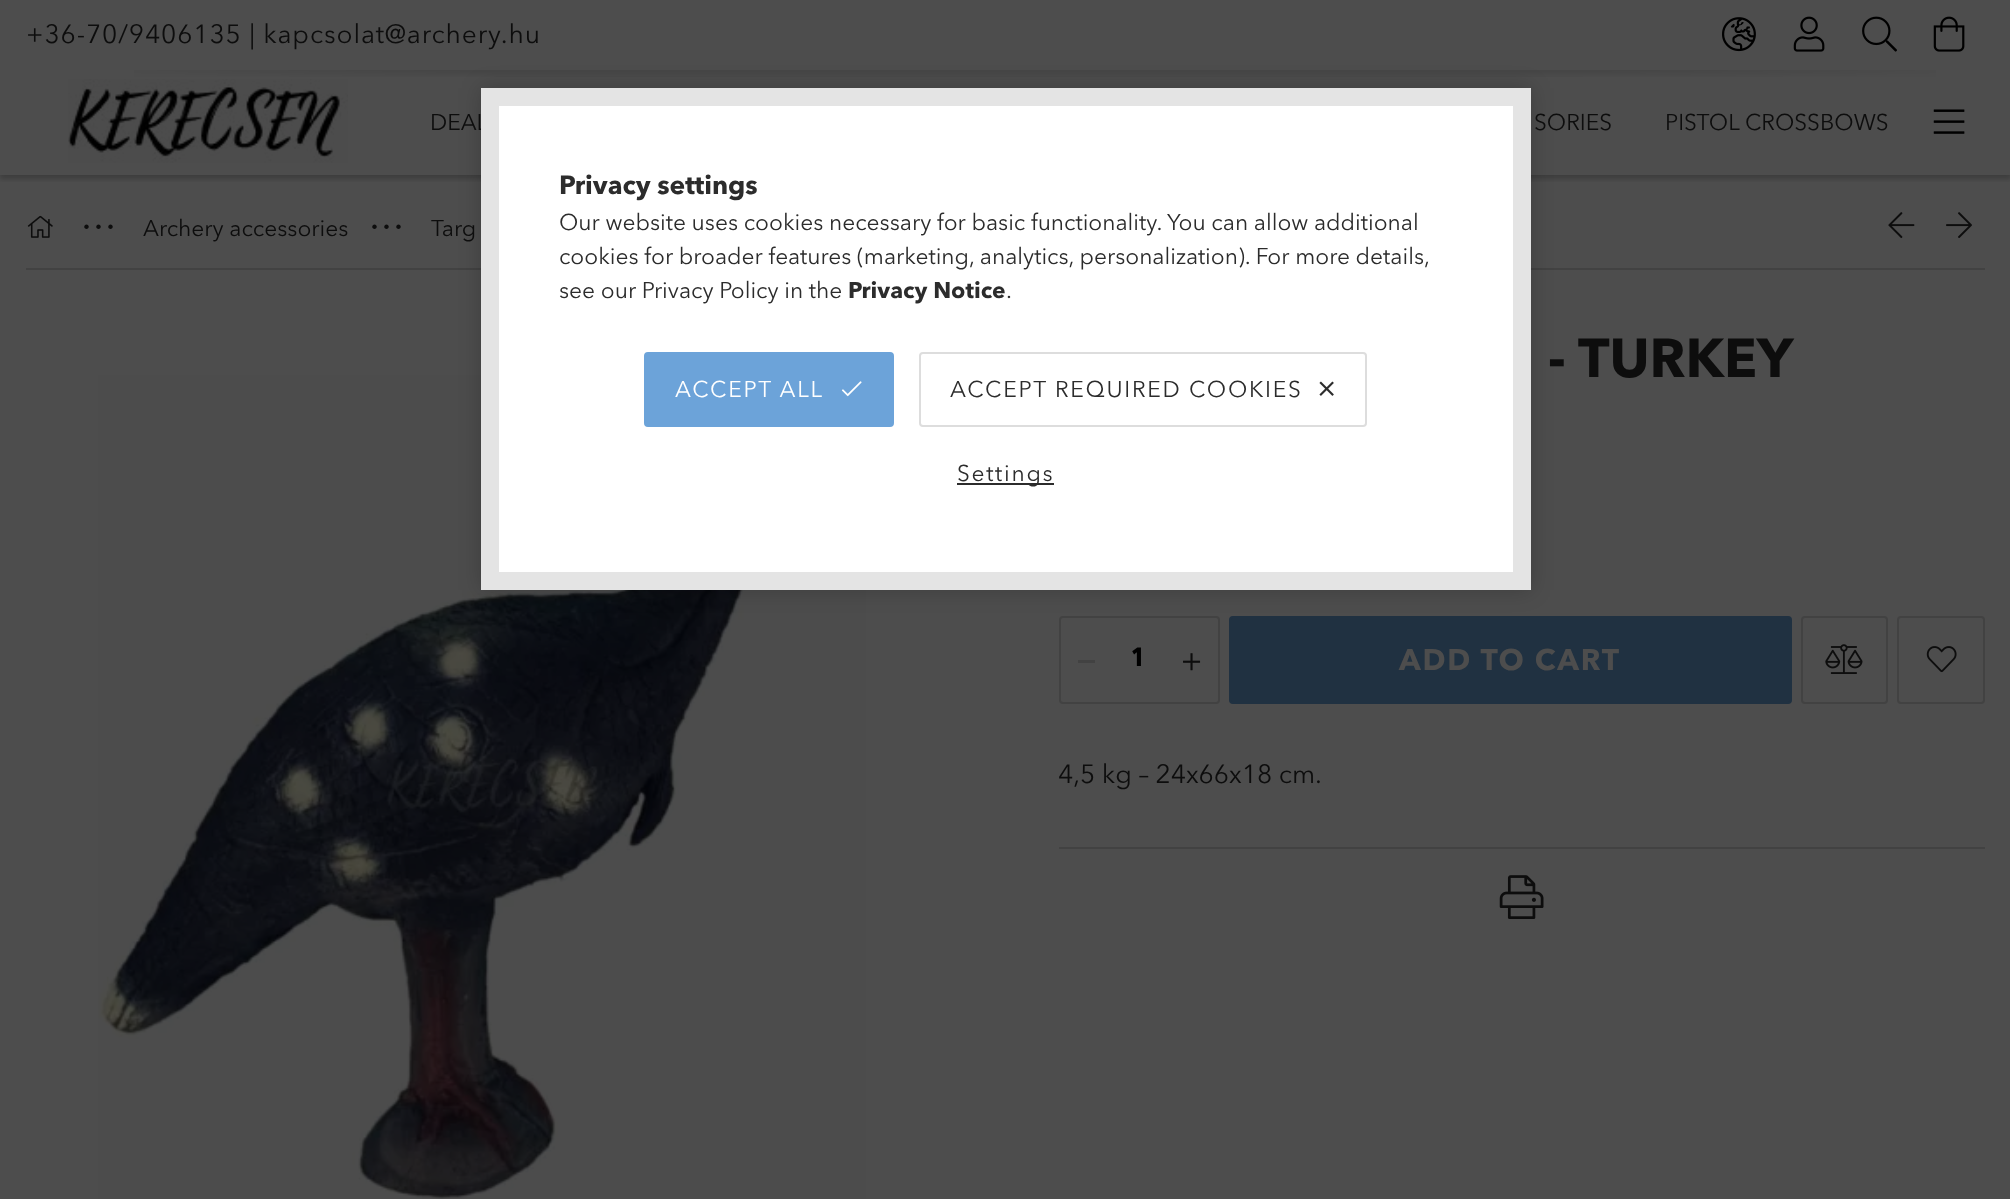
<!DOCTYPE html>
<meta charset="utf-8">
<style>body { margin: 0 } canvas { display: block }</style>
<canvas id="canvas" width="2010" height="1199"></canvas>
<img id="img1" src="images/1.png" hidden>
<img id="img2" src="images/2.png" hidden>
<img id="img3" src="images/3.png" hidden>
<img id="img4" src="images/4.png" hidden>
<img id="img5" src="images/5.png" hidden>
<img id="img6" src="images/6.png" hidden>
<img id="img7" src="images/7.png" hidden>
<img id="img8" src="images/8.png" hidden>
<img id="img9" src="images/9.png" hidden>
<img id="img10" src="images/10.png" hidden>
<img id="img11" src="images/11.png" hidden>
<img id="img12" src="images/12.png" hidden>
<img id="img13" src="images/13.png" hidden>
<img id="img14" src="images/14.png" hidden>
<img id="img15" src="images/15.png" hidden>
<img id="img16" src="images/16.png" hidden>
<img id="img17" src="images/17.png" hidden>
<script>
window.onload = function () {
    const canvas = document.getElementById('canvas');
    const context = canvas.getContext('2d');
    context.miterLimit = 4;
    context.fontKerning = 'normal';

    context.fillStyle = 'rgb(77, 77, 77)';
    context.fillRect(0, 0, 2010, 1199);
    context.save();
    context.beginPath();
    context.rect(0, 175, 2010, 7);
    context.clip();
    context.fillStyle = 'rgba(0, 0, 0, 0.2)';
    context.filter = 'blur(2.5px)';
    context.beginPath();
    context.rect(0, 4, 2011, 175);
    context.fill();
    context.filter = 'none';
    context.restore();
    context.drawImage(document.getElementById('img1'), 1722, 17, 34, 35);
    context.drawImage(document.getElementById('img2'), 1793, 16, 32, 36);
    context.drawImage(document.getElementById('img3'), 1862, 16, 35, 36);
    context.drawImage(document.getElementById('img4'), 1933, 16, 32, 36);
    context.drawImage(document.getElementById('img5'), 134, 70, 1802, 7);
    context.drawImage(document.getElementById('img6'), 68, 79, 280, 84);
    context.drawImage(document.getElementById('img7'), 1933, 109, 32, 25);
    context.drawImage(document.getElementById('img8'), 27, 215, 26, 23);
    context.drawImage(document.getElementById('img9'), 1888, 212, 27, 27);
    context.drawImage(document.getElementById('img10'), 1946, 212, 26, 26);
    context.fillStyle = 'rgb(66, 66, 66)';
    context.fillRect(26, 268, 1959, 2);
    context.drawImage(document.getElementById('img11'), 98, 375, 768, 824);
    context.beginPath();
    context.roundRect(1060, 617, 159, 86, 3);
    context.strokeStyle = 'rgb(66, 66, 66)';
    context.lineWidth = 2;
    context.stroke();
    context.fillRect(1078, 660, 17, 3);
    context.drawImage(document.getElementById('img12'), 1183, 653, 18, 18);
    context.fillStyle = 'rgb(32, 49, 65)';
    context.beginPath();
    context.roundRect(1230, 617, 561, 86, 3);
    context.fill();
    context.strokeStyle = 'rgb(32, 49, 65)';
    context.stroke();
    context.beginPath();
    context.roundRect(1802, 617, 85, 86, 3);
    context.strokeStyle = 'rgb(66, 66, 66)';
    context.stroke();
    context.drawImage(document.getElementById('img13'), 1825, 644, 38, 30);
    context.beginPath();
    context.roundRect(1898, 617, 86, 86, 3);
    context.stroke();
    context.drawImage(document.getElementById('img14'), 1926, 646, 31, 27);
    context.fillStyle = 'rgb(66, 66, 66)';
    context.fillRect(1059, 847, 926, 2);
    context.drawImage(document.getElementById('img15'), 1499, 875, 45, 44);
    context.fillStyle = 'rgba(0, 0, 0, 0.2)';
    context.filter = 'blur(10.5px)';
    context.beginPath();
    context.rect(481, 88, 1050, 502);
    context.fill();
    context.filter = 'none';
    context.letterSpacing = '0.9px';
    context.font = '26.25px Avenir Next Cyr';
    context.fillStyle = 'rgb(13, 13, 13)';
    context.fillText('+36-70/9406135 | kapcsolat@archery.hu', 26, 43);
    context.letterSpacing = '0px';
    context.font = '22.75px Avenir Next Cyr';
    context.fillText('DEAL', 430, 130);
    context.fillText('SORIES', 1534, 130);
    context.fillText('PISTOL CROSSBOWS', 1665, 130);
    context.letterSpacing = '5px';
    context.font = 'bold 28px Liberation Serif';
    context.fillText('∙∙∙', 83, 236);
    context.letterSpacing = '0px';
    context.font = '22.75px Avenir Next Cyr';
    context.fillText('Archery accessories', 143, 236);
    context.letterSpacing = '5px';
    context.font = 'bold 28px Liberation Serif';
    context.fillText('∙∙∙', 371, 236);
    context.letterSpacing = '0px';
    context.font = '22.75px Avenir Next Cyr';
    context.fillText('Targ', 431, 236);
    context.font = 'bold 54.25px Avenir Next Cyr';
    context.fillText('- TURKEY', 1548, 377);
    context.font = 'bold 26.25px Avenir Next';
    context.fillStyle = 'rgb(0, 0, 0)';
    context.fillText('1', 1131, 666);
    context.letterSpacing = '1.75px';
    context.font = 'bold 29.75px Avenir Next Cyr';
    context.fillStyle = 'rgb(77, 77, 77)';
    context.fillText('ADD TO CART', 1399, 670);
    context.letterSpacing = '0px';
    context.font = '26.25px Avenir Next Cyr';
    context.fillStyle = 'rgb(13, 13, 13)';
    context.fillText('4,5 kg – 24x66x18 cm.', 1058, 783);
    context.fillStyle = 'rgb(255, 255, 255)';
    context.beginPath();
    context.rect(490, 97, 1032, 484);
    context.fill();
    context.strokeStyle = 'rgb(228, 228, 228)';
    context.lineWidth = 18;
    context.stroke();
    context.font = 'bold 26.25px Avenir Next Cyr';
    context.fillStyle = 'rgb(44, 44, 44)';
    context.fillText('Privacy settings', 559, 194);
    context.font = '22.75px Avenir Next Cyr';
    context.fillText('Our website uses cookies necessary for basic functionality. You can allow additional', 559, 230);
    context.fillText('cookies for broader features (marketing, analytics, personalization). For more details,', 559, 264);
    context.fillText('see our Privacy Policy in the', 559, 298);
    context.font = 'bold 22.75px Avenir Next Cyr';
    context.fillText('Privacy Notice', 848, 298);
    context.font = '22.75px Avenir Next Cyr';
    context.fillText('.', 1006, 298);
    context.fillStyle = 'rgb(108, 163, 217)';
    context.beginPath();
    context.roundRect(645, 353, 248, 73, 3);
    context.fill();
    context.strokeStyle = 'rgb(108, 163, 217)';
    context.lineWidth = 2;
    context.stroke();
    context.letterSpacing = '1.75px';
    context.fillStyle = 'rgb(255, 255, 255)';
    context.fillText('ACCEPT ALL', 675, 397);
    context.drawImage(document.getElementById('img16'), 841, 381, 21, 16);
    context.beginPath();
    context.roundRect(920, 353, 446, 73, 3);
    context.strokeStyle = 'rgb(221, 221, 221)';
    context.stroke();
    context.fillStyle = 'rgb(44, 44, 44)';
    context.fillText('ACCEPT REQUIRED COOKIES', 950, 397);
    context.drawImage(document.getElementById('img17'), 1319, 381, 15, 15);
    context.fillRect(957, 483, 97, 2);
    context.fillText('Settings', 957, 481);
};
</script>
